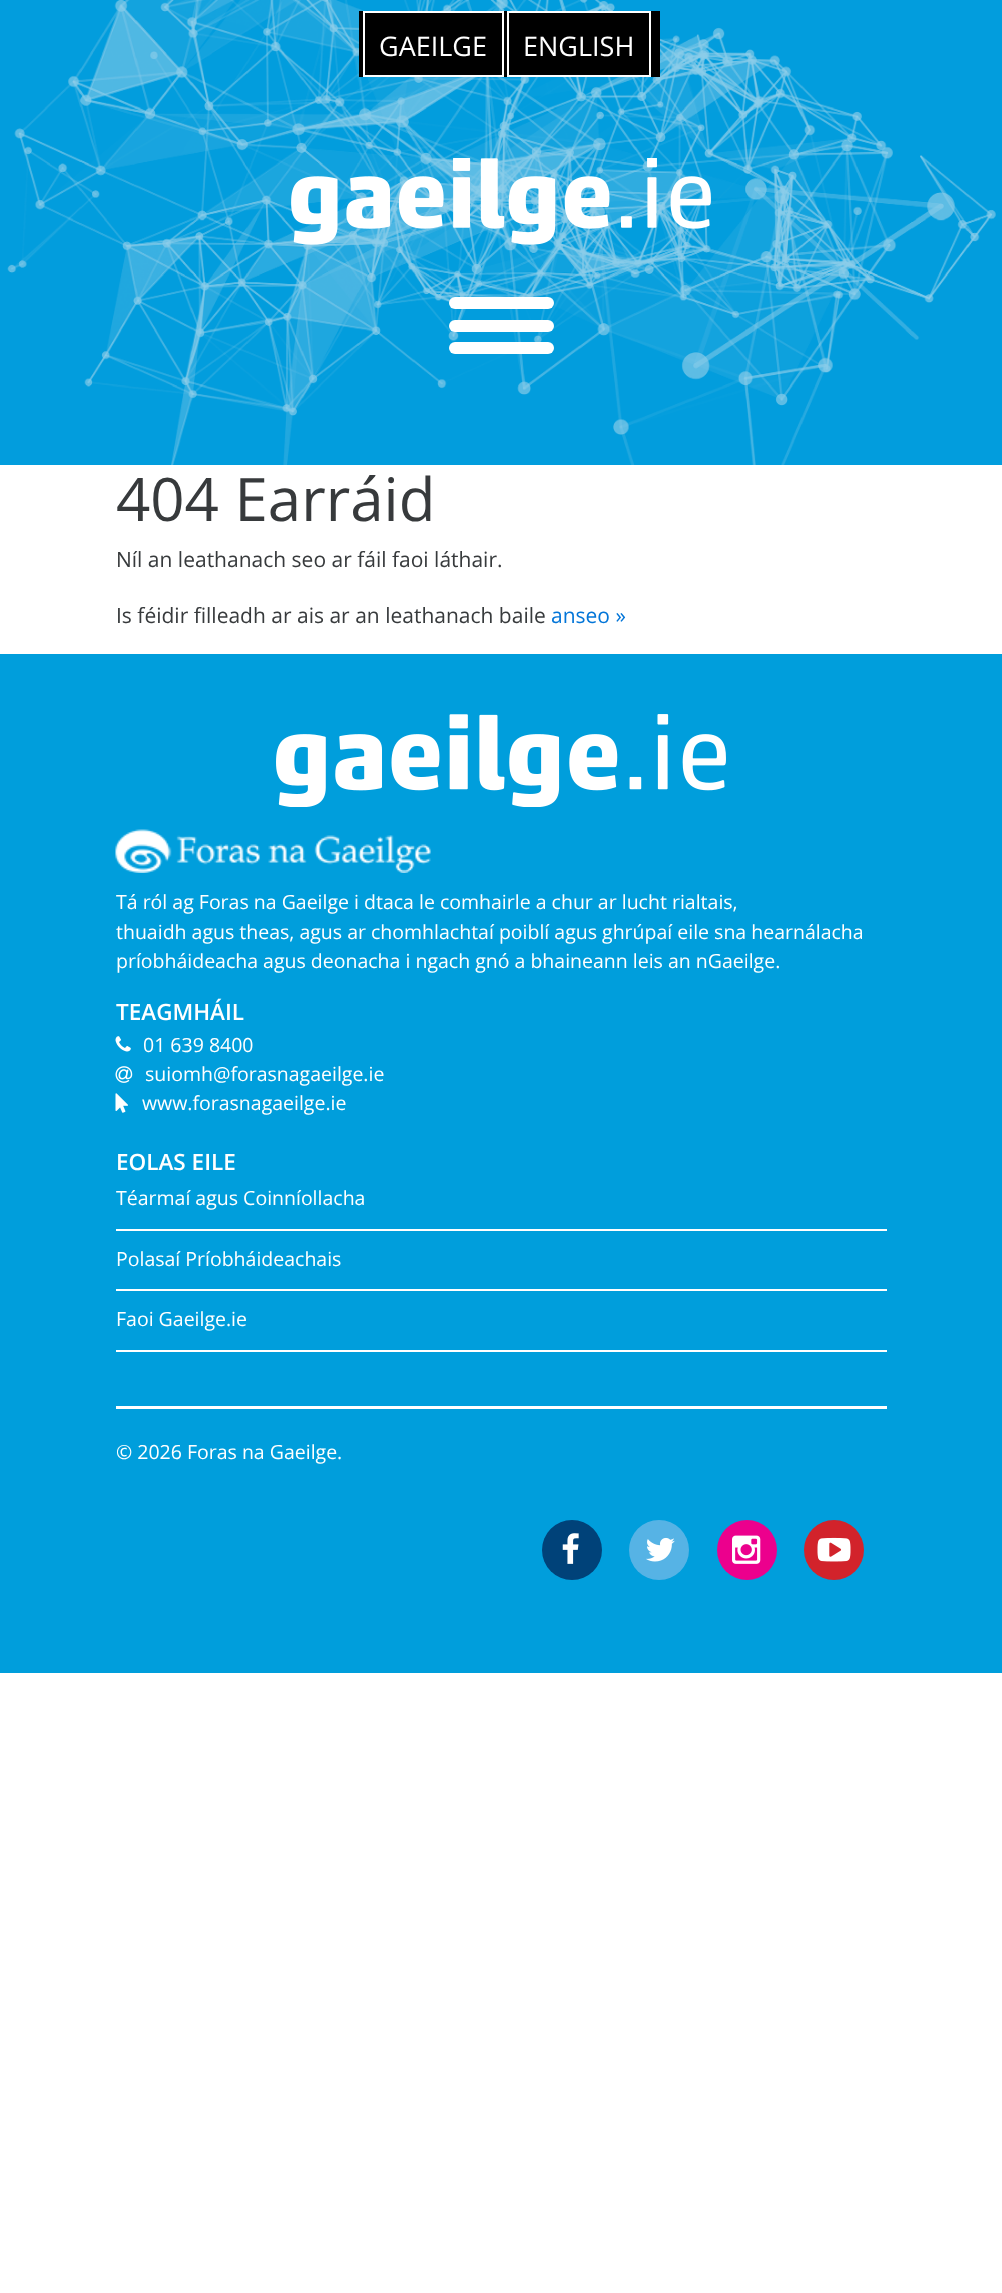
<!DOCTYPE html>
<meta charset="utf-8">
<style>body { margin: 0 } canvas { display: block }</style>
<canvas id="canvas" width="1002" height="2293"></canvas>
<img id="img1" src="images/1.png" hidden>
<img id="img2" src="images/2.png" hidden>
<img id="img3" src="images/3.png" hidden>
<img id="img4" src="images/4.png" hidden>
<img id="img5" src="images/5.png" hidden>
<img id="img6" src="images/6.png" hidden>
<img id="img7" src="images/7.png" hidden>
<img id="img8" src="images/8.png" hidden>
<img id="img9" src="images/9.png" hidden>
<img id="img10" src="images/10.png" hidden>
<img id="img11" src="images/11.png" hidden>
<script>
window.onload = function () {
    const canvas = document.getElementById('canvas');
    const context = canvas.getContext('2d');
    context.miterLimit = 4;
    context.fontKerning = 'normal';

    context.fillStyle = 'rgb(255, 255, 255)';
    context.fillRect(0, 0, 1002, 2293);
    context.fillStyle = 'rgb(2, 157, 221)';
    context.fillRect(0, 0, 1002, 465);
    context.drawImage(document.getElementById('img1'), 7, 0, 989, 465);
    context.drawImage(document.getElementById('img2'), 291, 158, 420, 87);
    context.fillStyle = 'rgb(255, 255, 255)';
    context.beginPath();
    context.roundRect(449, 297, 105, 12, 6);
    context.fill();
    context.beginPath();
    context.roundRect(449, 320, 105, 12, 6);
    context.fill();
    context.beginPath();
    context.roundRect(449, 342, 105, 12, 6);
    context.fill();
    context.fillStyle = 'rgb(0, 0, 0)';
    context.fillRect(359, 11, 301, 66);
    context.strokeStyle = 'rgb(255, 255, 255)';
    context.lineWidth = 2;
    context.strokeRect(364, 12, 139, 64);
    context.strokeRect(508, 12, 142, 64);
    context.fillStyle = 'rgb(0, 158, 220)';
    context.fillRect(0, 654, 1002, 1019);
    context.drawImage(document.getElementById('img3'), 276, 714, 450, 93);
    context.drawImage(document.getElementById('img4'), 115, 829, 316, 44);
    context.drawImage(document.getElementById('img5'), 115, 1036, 16, 16);
    context.drawImage(document.getElementById('img6'), 115, 1066, 18, 17);
    context.drawImage(document.getElementById('img7'), 115, 1093, 13, 20);
    context.fillStyle = 'rgb(255, 255, 255)';
    context.fillRect(116, 1229, 771, 2);
    context.fillRect(116, 1289, 771, 2);
    context.fillRect(116, 1350, 771, 2);
    context.fillRect(116, 1406, 771, 3);
    context.fillStyle = 'rgb(0, 66, 121)';
    context.beginPath();
    context.arc(572, 1550, 30, 0, 2 * Math.PI);
    context.fill();
    context.drawImage(document.getElementById('img8'), 562, 1533, 17, 31);
    context.fillStyle = 'rgb(86, 179, 229)';
    context.beginPath();
    context.arc(659, 1550, 30, 0, 2 * Math.PI);
    context.fill();
    context.drawImage(document.getElementById('img9'), 646, 1537, 29, 25);
    context.fillStyle = 'rgb(236, 0, 141)';
    context.beginPath();
    context.arc(747, 1550, 30, 0, 2 * Math.PI);
    context.fill();
    context.drawImage(document.getElementById('img10'), 732, 1535, 29, 29);
    context.fillStyle = 'rgb(210, 35, 43)';
    context.beginPath();
    context.arc(834, 1550, 30, 0, 2 * Math.PI);
    context.fill();
    context.drawImage(document.getElementById('img11'), 817, 1537, 34, 25);
    context.font = '27px Open Sans';
    context.fillStyle = 'rgb(255, 255, 255)';
    context.fillText('GAEILGE', 379, 56);
    context.fillText('ENGLISH', 523, 56);
    context.font = '60px Open Sans';
    context.fillStyle = 'rgb(55, 58, 60)';
    context.fillText('404 Earráid', 116, 521);
    context.font = '21px Open Sans';
    context.fillText('Níl an leathanach seo ar fáil faoi láthair.', 116, 567);
    context.fillText('Is féidir filleadh ar ais ar an leathanach baile', 116, 623);
    context.fillStyle = 'rgb(2, 117, 216)';
    context.fillText('anseo »', 551, 623);
    context.font = '19.5px Open Sans';
    context.fillStyle = 'rgb(255, 255, 255)';
    context.fillText('Tá ról ag Foras na Gaeilge i dtaca le comhairle a chur ar lucht rialtais,', 116, 909);
    context.fillText('thuaidh agus theas, agus ar chomhlachtaí poiblí agus ghrúpaí eile sna hearnálacha', 116, 939);
    context.fillText('príobháideacha agus deonacha i ngach gnó a bhaineann leis an nGaeilge.', 116, 968);
    context.font = '600 22.5px Open Sans';
    context.fillText('TEAGMHÁIL', 116, 1020);
    context.font = '19.5px Open Sans';
    context.fillText('01 639 8400', 143, 1052);
    context.fillText('suiomh@forasnagaeilge.ie', 145, 1081);
    context.fillText('www.forasnagaeilge.ie', 142, 1110);
    context.font = '600 22.5px Open Sans';
    context.fillText('EOLAS EILE', 116, 1170);
    context.font = '19.5px Open Sans';
    context.fillText('Téarmaí agus Coinníollacha', 116, 1205);
    context.fillText('Polasaí Príobháideachais', 116, 1266);
    context.fillText('Faoi Gaeilge.ie', 116, 1326);
    context.fillText('© 2026 Foras na Gaeilge.', 116, 1459);
};
</script>
